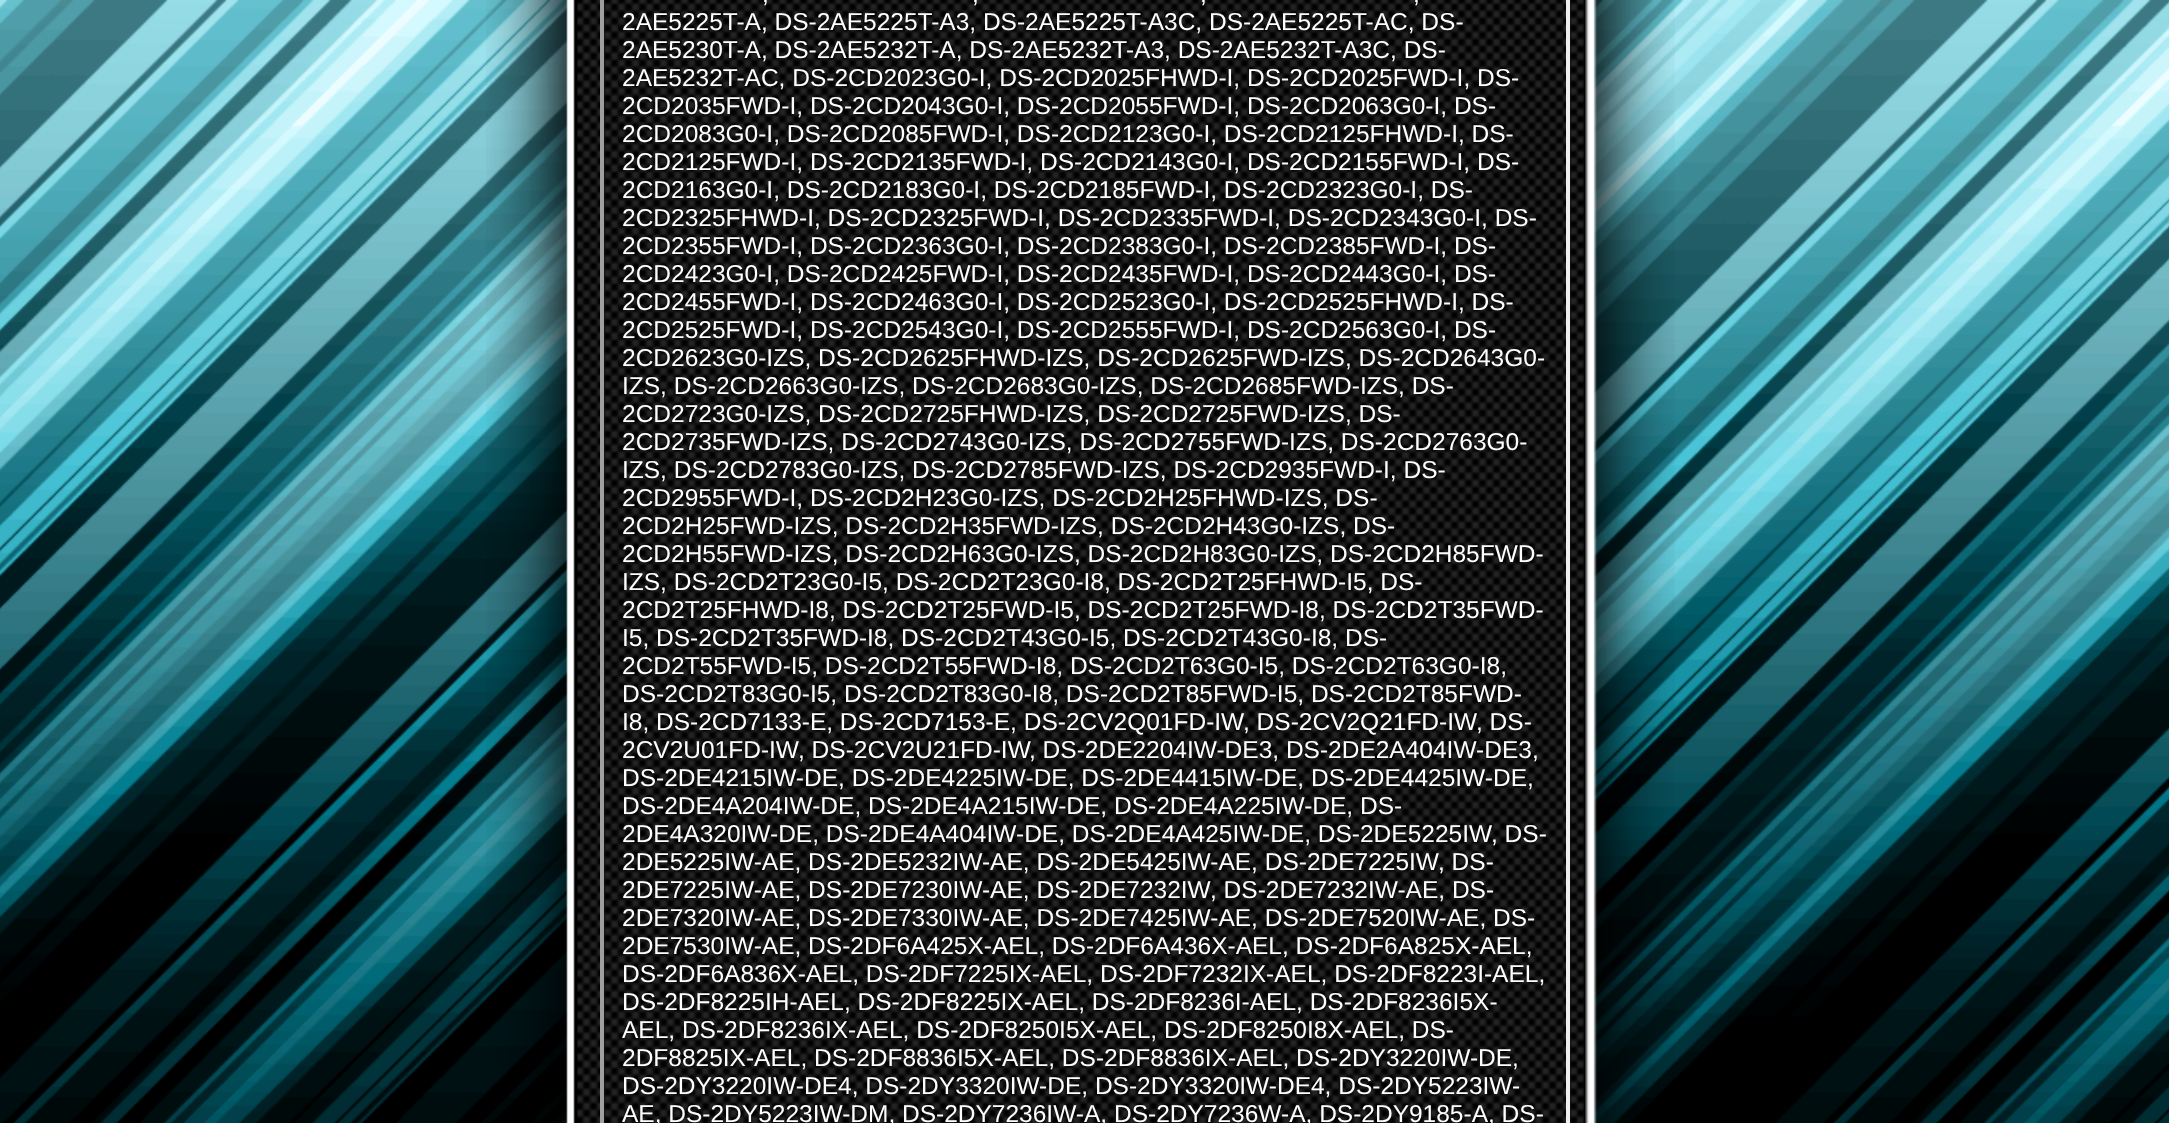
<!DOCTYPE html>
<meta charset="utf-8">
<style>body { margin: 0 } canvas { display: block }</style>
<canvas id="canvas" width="2169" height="1123"></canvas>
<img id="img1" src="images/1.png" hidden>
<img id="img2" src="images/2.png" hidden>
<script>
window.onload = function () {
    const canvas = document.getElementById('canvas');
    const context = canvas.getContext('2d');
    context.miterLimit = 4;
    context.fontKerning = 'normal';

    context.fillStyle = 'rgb(255, 255, 255)';
    context.fillRect(0, 0, 2169, 1123);
    context.drawImage(document.getElementById('img1'), 0, 0, 2169, 1123);
    context.drawImage(document.getElementById('img2'), 486, 0, 1189, 1123);
    context.fillStyle = 'rgb(239, 239, 239)';
    context.beginPath();
    context.moveTo(1570, -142);
    context.lineTo(1570, 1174);
    context.lineTo(1566, 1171);
    context.lineTo(1566, -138);
    context.closePath();
    context.fill();
    context.fillStyle = 'rgb(159, 159, 159)';
    context.beginPath();
    context.moveTo(600, 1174);
    context.lineTo(600, -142);
    context.lineTo(604, -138);
    context.lineTo(604, 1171);
    context.closePath();
    context.fill();
    context.font = '24.5px Liberation Sans';
    context.fillStyle = 'rgb(255, 255, 255)';
    context.fillText(',', 762, 2);
    context.fillText(',', 972, 2);
    context.fillText(',', 1200, 2);
    context.fillText(',', 1413, 2);
    context.fillText('2AE5225T-A, DS-2AE5225T-A3, DS-2AE5225T-A3C, DS-2AE5225T-AC, DS-', 622, 30);
    context.fillText('2AE5230T-A, DS-2AE5232T-A, DS-2AE5232T-A3, DS-2AE5232T-A3C, DS-', 622, 58);
    context.fillText('2AE5232T-AC, DS-2CD2023G0-I, DS-2CD2025FHWD-I, DS-2CD2025FWD-I, DS-', 622, 86);
    context.fillText('2CD2035FWD-I, DS-2CD2043G0-I, DS-2CD2055FWD-I, DS-2CD2063G0-I, DS-', 622, 114);
    context.fillText('2CD2083G0-I, DS-2CD2085FWD-I, DS-2CD2123G0-I, DS-2CD2125FHWD-I, DS-', 622, 142);
    context.fillText('2CD2125FWD-I, DS-2CD2135FWD-I, DS-2CD2143G0-I, DS-2CD2155FWD-I, DS-', 622, 170);
    context.fillText('2CD2163G0-I, DS-2CD2183G0-I, DS-2CD2185FWD-I, DS-2CD2323G0-I, DS-', 622, 198);
    context.fillText('2CD2325FHWD-I, DS-2CD2325FWD-I, DS-2CD2335FWD-I, DS-2CD2343G0-I, DS-', 622, 226);
    context.fillText('2CD2355FWD-I, DS-2CD2363G0-I, DS-2CD2383G0-I, DS-2CD2385FWD-I, DS-', 622, 254);
    context.fillText('2CD2423G0-I, DS-2CD2425FWD-I, DS-2CD2435FWD-I, DS-2CD2443G0-I, DS-', 622, 282);
    context.fillText('2CD2455FWD-I, DS-2CD2463G0-I, DS-2CD2523G0-I, DS-2CD2525FHWD-I, DS-', 622, 310);
    context.fillText('2CD2525FWD-I, DS-2CD2543G0-I, DS-2CD2555FWD-I, DS-2CD2563G0-I, DS-', 622, 338);
    context.fillText('2CD2623G0-IZS, DS-2CD2625FHWD-IZS, DS-2CD2625FWD-IZS, DS-2CD2643G0-', 622, 366);
    context.fillText('IZS, DS-2CD2663G0-IZS, DS-2CD2683G0-IZS, DS-2CD2685FWD-IZS, DS-', 622, 394);
    context.fillText('2CD2723G0-IZS, DS-2CD2725FHWD-IZS, DS-2CD2725FWD-IZS, DS-', 622, 422);
    context.fillText('2CD2735FWD-IZS, DS-2CD2743G0-IZS, DS-2CD2755FWD-IZS, DS-2CD2763G0-', 622, 450);
    context.fillText('IZS, DS-2CD2783G0-IZS, DS-2CD2785FWD-IZS, DS-2CD2935FWD-I, DS-', 622, 478);
    context.fillText('2CD2955FWD-I, DS-2CD2H23G0-IZS, DS-2CD2H25FHWD-IZS, DS-', 622, 506);
    context.fillText('2CD2H25FWD-IZS, DS-2CD2H35FWD-IZS, DS-2CD2H43G0-IZS, DS-', 622, 534);
    context.fillText('2CD2H55FWD-IZS, DS-2CD2H63G0-IZS, DS-2CD2H83G0-IZS, DS-2CD2H85FWD-', 622, 562);
    context.fillText('IZS, DS-2CD2T23G0-I5, DS-2CD2T23G0-I8, DS-2CD2T25FHWD-I5, DS-', 622, 590);
    context.fillText('2CD2T25FHWD-I8, DS-2CD2T25FWD-I5, DS-2CD2T25FWD-I8, DS-2CD2T35FWD-', 622, 618);
    context.fillText('I5, DS-2CD2T35FWD-I8, DS-2CD2T43G0-I5, DS-2CD2T43G0-I8, DS-', 622, 646);
    context.fillText('2CD2T55FWD-I5, DS-2CD2T55FWD-I8, DS-2CD2T63G0-I5, DS-2CD2T63G0-I8,', 622, 674);
    context.fillText('DS-2CD2T83G0-I5, DS-2CD2T83G0-I8, DS-2CD2T85FWD-I5, DS-2CD2T85FWD-', 622, 702);
    context.fillText('I8, DS-2CD7133-E, DS-2CD7153-E, DS-2CV2Q01FD-IW', 622, 730);
    context.fillText(', DS-2CV2Q21FD-IW', 1243, 730);
    context.fillText(', DS-', 1476, 730);
    context.fillText('2CV2U01FD-IW', 622, 758);
    context.fillText(', DS-2CV2U21FD-IW', 798, 758);
    context.fillText(', DS-2DE2204IW-DE3, DS-2DE2A404IW-DE3,', 1029, 758);
    context.fillText('DS-2DE4215IW-DE, DS-2DE4225IW-DE, DS-2DE4415IW-DE, DS-2DE4425IW-DE,', 622, 786);
    context.fillText('DS-2DE4A204IW-DE, DS-2DE4A215IW-DE, DS-2DE4A225IW-DE, DS-', 622, 814);
    context.fillText('2DE4A320IW-DE, DS-2DE4A404IW-DE, DS-2DE4A425IW-DE, DS-2DE5225IW', 622, 842);
    context.fillText(', DS-', 1491, 842);
    context.fillText('2DE5225IW-AE, DS-2DE5232IW-AE, DS-2DE5425IW-AE, DS-2DE7225IW', 622, 870);
    context.fillText(', DS-', 1438, 870);
    context.fillText('2DE7225IW-AE, DS-2DE7230IW-AE, DS-2DE7232IW', 622, 898);
    context.fillText(', DS-2DE7232IW-AE, DS-', 1210, 898);
    context.fillText('2DE7320IW-AE, DS-2DE7330IW-AE, DS-2DE7425IW-AE, DS-2DE7520IW-AE, DS-', 622, 926);
    context.fillText('2DE7530IW-AE, DS-2DF6A425X-AEL, DS-2DF6A436X-AEL, DS-2DF6A825X-AEL,', 622, 954);
    context.fillText('DS-2DF6A836X-AEL, DS-2DF7225IX-AEL, DS-2DF7232IX-AEL, DS-2DF8223I-AEL,', 622, 982);
    context.fillText('DS-2DF8225IH-AEL, DS-2DF8225IX-AEL, DS-2DF8236I-AEL, DS-2DF8236I5X-', 622, 1010);
    context.fillText('AEL, DS-2DF8236IX-AEL, DS-2DF8250I5X-AEL, DS-2DF8250I8X-AEL, DS-', 622, 1038);
    context.fillText('2DF8825IX-AEL, DS-2DF8836I5X-AEL, DS-2DF8836IX-AEL, DS-2DY3220IW-DE,', 622, 1066);
    context.fillText('DS-2DY3220IW-DE4, DS-2DY3320IW-DE, DS-2DY3320IW-DE4, DS-2DY5223IW-', 622, 1094);
    context.fillText('AE, DS-2DY5223IW-DM, DS-2DY7236IW-A, DS-2DY7236W-A, DS-2DY9185-A, DS-', 622, 1122);
};
</script>
